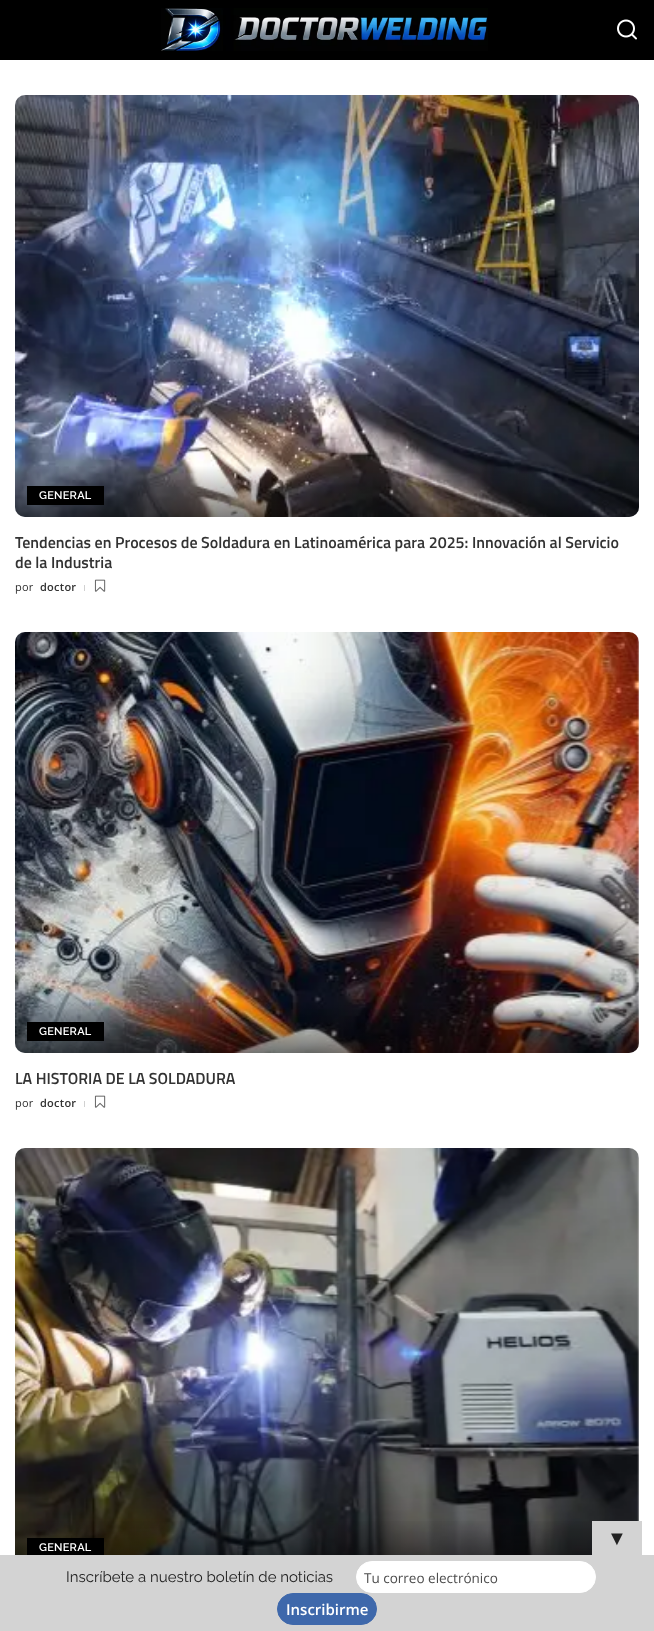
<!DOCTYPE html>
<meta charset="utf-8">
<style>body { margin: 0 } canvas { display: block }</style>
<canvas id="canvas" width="654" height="1631"></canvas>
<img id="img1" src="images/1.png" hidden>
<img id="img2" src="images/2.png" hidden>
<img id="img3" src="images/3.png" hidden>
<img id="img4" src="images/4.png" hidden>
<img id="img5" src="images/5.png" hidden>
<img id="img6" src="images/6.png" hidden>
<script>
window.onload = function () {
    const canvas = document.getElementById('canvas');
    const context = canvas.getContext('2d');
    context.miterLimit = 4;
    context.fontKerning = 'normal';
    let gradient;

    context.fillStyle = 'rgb(255, 255, 255)';
    context.fillRect(0, 0, 654, 1631);
    context.fillStyle = 'rgb(0, 0, 0)';
    context.fillRect(0, 0, 654, 60);
    context.drawImage(document.getElementById('img1'), 161, 8, 327, 43);
    context.drawImage(document.getElementById('img2'), 617, 19, 20, 21);
    context.drawImage(document.getElementById('img3'), 15, 95, 624, 422);
    gradient = context.createLinearGradient(327, 466, 327, 517);
    gradient.addColorStop(0, 'rgba(0, 0, 0, 0)');
    gradient.addColorStop(1, 'rgba(0, 0, 0, 0.5)');
    context.fillStyle = gradient;
    context.beginPath();
    context.roundRect(15, 466, 624, 51, [0, 0, 10, 10]);
    context.fill();
    context.fillStyle = 'rgb(0, 0, 0)';
    context.fillRect(27, 486, 77, 19);
    context.fillStyle = 'rgb(209, 209, 209)';
    context.fillRect(84, 585, 1, 6);
    context.drawImage(document.getElementById('img4'), 94, 579, 12, 13);
    context.drawImage(document.getElementById('img5'), 15, 632, 624, 421);
    gradient = context.createLinearGradient(327, 1002, 327, 1053);
    gradient.addColorStop(0, 'rgba(0, 0, 0, 0)');
    gradient.addColorStop(1, 'rgba(0, 0, 0, 0.5)');
    context.fillStyle = gradient;
    context.beginPath();
    context.roundRect(15, 1002, 624, 51, [0, 0, 10, 10]);
    context.fill();
    context.fillStyle = 'rgb(0, 0, 0)';
    context.fillRect(27, 1022, 77, 19);
    context.fillStyle = 'rgb(209, 209, 209)';
    context.fillRect(84, 1101, 1, 6);
    context.drawImage(document.getElementById('img4'), 94, 1095, 12, 13);
    context.drawImage(document.getElementById('img6'), 15, 1148, 624, 407);
    gradient = context.createLinearGradient(327, 1518, 327, 1569);
    gradient.addColorStop(0, 'rgba(0, 0, 0, 0)');
    gradient.addColorStop(1, 'rgba(0, 0, 0, 0.5)');
    context.fillStyle = gradient;
    context.fillRect(15, 1521, 624, 34);
    context.fillStyle = 'rgb(0, 0, 0)';
    context.fillRect(27, 1538, 77, 17);
    context.fillStyle = 'rgb(211, 211, 211)';
    context.fillRect(592, 1521, 50, 34);
    context.fillRect(0, 1555, 654, 76);
    context.fillStyle = 'rgb(255, 255, 255)';
    context.beginPath();
    context.roundRect(356.5, 1561.5, 239, 31, 15.5);
    context.fill();
    context.strokeStyle = 'rgb(255, 255, 255)';
    context.stroke();
    context.fillStyle = 'rgb(62, 104, 171)';
    context.beginPath();
    context.roundRect(277.5, 1593.5, 99, 31, 15.5);
    context.fill();
    context.strokeStyle = 'rgb(62, 104, 171)';
    context.stroke();
    context.letterSpacing = '0.25px';
    context.font = '600 11px Raleway';
    context.fillStyle = 'rgb(255, 255, 255)';
    context.fillText('GENERAL', 39, 499);
    context.letterSpacing = '0px';
    context.font = '600 16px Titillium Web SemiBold';
    context.fillStyle = 'rgb(51, 51, 51)';
    context.fillText('Tendencias en Procesos de Soldadura en Latinoamérica para 2025: Innovación al Servicio', 15, 548);
    context.fillText('de la Industria', 15, 568);
    context.letterSpacing = '0.25px';
    context.font = '11px Open Sans';
    context.fillText('por', 15, 591);
    context.font = '600 11px Open Sans';
    context.fillText('doctor', 40, 591);
    context.font = '600 11px Raleway';
    context.fillStyle = 'rgb(255, 255, 255)';
    context.fillText('GENERAL', 39, 1035);
    context.letterSpacing = '0px';
    context.font = '600 16px Titillium Web SemiBold';
    context.fillStyle = 'rgb(51, 51, 51)';
    context.fillText('LA HISTORIA DE LA SOLDADURA', 15, 1084);
    context.letterSpacing = '0.25px';
    context.font = '11px Open Sans';
    context.fillText('por', 15, 1107);
    context.font = '600 11px Open Sans';
    context.fillText('doctor', 40, 1107);
    context.font = '600 11px Raleway';
    context.fillStyle = 'rgb(255, 255, 255)';
    context.fillText('GENERAL', 39, 1551);
    context.letterSpacing = '0px';
    context.font = '20px Liberation Serif';
    context.fillStyle = 'rgb(34, 34, 34)';
    context.fillText('▼', 607, 1545);
    context.font = '15px Raleway';
    context.fillText('Inscríbete a nuestro boletín de noticias', 66, 1582);
    context.font = '13.5px Open Sans';
    context.fillStyle = 'rgb(77, 77, 77)';
    context.fillText('Tu correo electrónico', 364, 1583);
    context.font = '600 15px Open Sans';
    context.fillStyle = 'rgb(255, 255, 255)';
    context.fillText('Inscribirme', 286, 1615);
};
</script>
